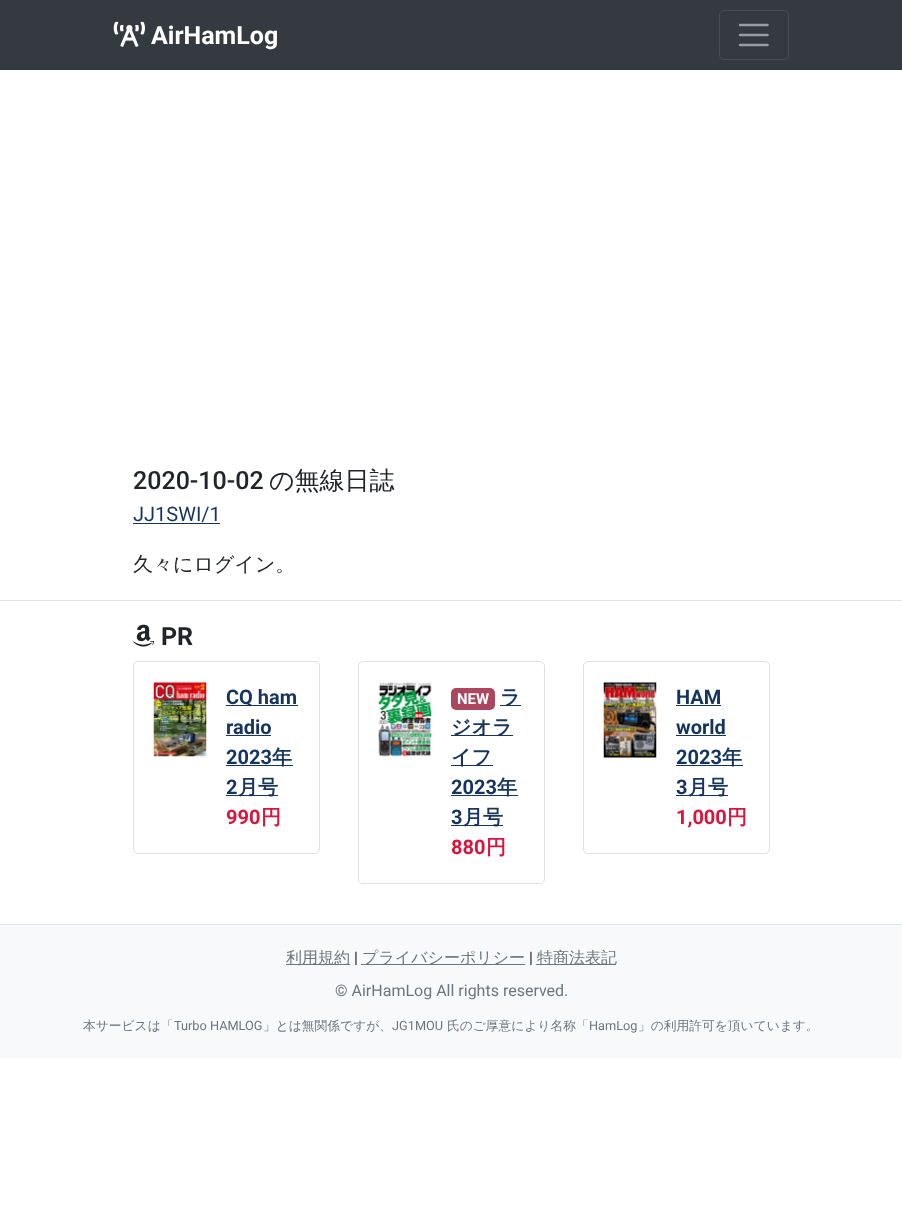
<!DOCTYPE html>
<meta charset="utf-8">
<style>body { margin: 0 } canvas { display: block }</style>
<canvas id="canvas" width="902" height="1230"></canvas>
<img id="img1" src="images/1.png" hidden>
<img id="img2" src="images/2.png" hidden>
<img id="img3" src="images/3.png" hidden>
<img id="img4" src="images/4.png" hidden>
<img id="img5" src="images/5.png" hidden>
<script>
window.onload = function () {
    const canvas = document.getElementById('canvas');
    const context = canvas.getContext('2d');
    context.miterLimit = 4;
    context.fontKerning = 'normal';

    context.fillStyle = 'rgb(255, 255, 255)';
    context.fillRect(0, 0, 902, 1230);
    context.fillStyle = 'rgb(52, 58, 64)';
    context.fillRect(0, 0, 902, 70);
    context.drawImage(document.getElementById('img1'), 113, 21, 32, 26);
    context.beginPath();
    context.roundRect(719.5, 10.5, 69, 49, 4.5);
    context.strokeStyle = 'rgb(72, 78, 83)';
    context.stroke();
    context.beginPath();
    context.moveTo(740, 25);
    context.lineTo(767.5, 25);
    context.moveTo(740, 35);
    context.lineTo(767.5, 35);
    context.moveTo(740, 45);
    context.lineTo(767.5, 45);
    context.strokeStyle = 'rgb(154, 157, 160)';
    context.lineWidth = 2.5;
    context.lineCap = 'round';
    context.stroke();
    context.fillStyle = 'rgb(21, 52, 94)';
    context.fillRect(133, 523, 87, 1);
    context.fillStyle = 'rgb(222, 226, 230)';
    context.fillRect(0, 600, 902, 1);
    context.fillRect(0, 924, 902, 1);
    context.drawImage(document.getElementById('img2'), 132, 624, 22, 23);
    context.beginPath();
    context.roundRect(133.5, 661.5, 186, 192, 4.5);
    context.strokeStyle = 'rgb(223, 223, 223)';
    context.lineWidth = 1;
    context.stroke();
    context.drawImage(document.getElementById('img3'), 153, 682, 54, 75);
    context.fillStyle = 'rgb(21, 52, 94)';
    context.fillRect(226, 705, 72, 1);
    context.fillRect(226, 735, 45, 1);
    context.fillRect(226, 765, 67, 1);
    context.fillRect(226, 795, 52, 1);
    context.beginPath();
    context.roundRect(358.5, 661.5, 186, 222, 4.5);
    context.stroke();
    context.drawImage(document.getElementById('img4'), 378, 682, 54, 75);
    context.fillStyle = 'rgb(172, 70, 94)';
    context.beginPath();
    context.roundRect(451, 688, 44, 22, 5);
    context.fill();
    context.fillStyle = 'rgb(21, 52, 94)';
    context.fillRect(500, 705, 21, 1);
    context.fillRect(451, 735, 62, 1);
    context.fillRect(451, 765, 42, 1);
    context.fillRect(451, 795, 67, 1);
    context.fillRect(451, 825, 52, 1);
    context.beginPath();
    context.roundRect(583.5, 661.5, 186, 192, 4.5);
    context.stroke();
    context.drawImage(document.getElementById('img5'), 603, 682, 54, 76);
    context.fillRect(676, 705, 45, 1);
    context.fillRect(676, 735, 50, 1);
    context.fillRect(676, 765, 67, 1);
    context.fillRect(676, 795, 52, 1);
    context.fillStyle = 'rgb(248, 249, 250)';
    context.fillRect(0, 925, 902, 133);
    context.fillStyle = 'rgb(108, 117, 125)';
    context.fillRect(286, 964, 64, 1);
    context.fillRect(361, 964, 164, 1);
    context.fillRect(536, 964, 80, 1);
    context.font = 'bold 25px Roboto';
    context.fillStyle = 'rgb(255, 255, 255)';
    context.fillText('AirHamLog', 151, 44);
    context.font = '500 25px Roboto';
    context.fillStyle = 'rgb(33, 37, 41)';
    context.fillText('2020-10-02', 133, 489);
    context.font = '500 25px WenQuanYi Zen Hei';
    context.fillText('の無線日誌', 269, 489);
    context.font = '20px Roboto';
    context.fillStyle = 'rgb(21, 52, 94)';
    context.fillText('JJ1SWI/1', 133, 521);
    context.font = '500 20px WenQuanYi Zen Hei';
    context.fillStyle = 'rgb(33, 37, 41)';
    context.fillText('久々にログイン。', 133, 571);
    context.font = 'bold 25px Roboto';
    context.fillText('PR', 161, 645);
    context.font = 'bold 20px Roboto';
    context.fillStyle = 'rgb(21, 52, 94)';
    context.fillText('CQ ham', 226, 704);
    context.fillText('radio', 226, 734);
    context.fillText('2023', 226, 764);
    context.font = 'bold 20px WenQuanYi Zen Hei';
    context.fillText('年', 272, 764);
    context.font = 'bold 20px Roboto';
    context.fillText('2', 226, 794);
    context.font = 'bold 20px WenQuanYi Zen Hei';
    context.fillText('月号', 238, 794);
    context.font = 'bold 20px Roboto';
    context.fillStyle = 'rgb(220, 20, 60)';
    context.fillText('990', 226, 824);
    context.font = 'bold 20px WenQuanYi Zen Hei';
    context.fillText('円', 261, 824);
    context.font = 'bold 15px Roboto';
    context.fillStyle = 'rgb(255, 255, 255)';
    context.fillText('NEW', 457, 704);
    context.font = 'bold 20px WenQuanYi Zen Hei';
    context.fillStyle = 'rgb(21, 52, 94)';
    context.fillText('ラ', 500, 704);
    context.fillText('ジオラ', 451, 734);
    context.fillText('イフ', 451, 764);
    context.font = 'bold 20px Roboto';
    context.fillText('2023', 451, 794);
    context.font = 'bold 20px WenQuanYi Zen Hei';
    context.fillText('年', 497, 794);
    context.font = 'bold 20px Roboto';
    context.fillText('3', 451, 824);
    context.font = 'bold 20px WenQuanYi Zen Hei';
    context.fillText('月号', 463, 824);
    context.font = 'bold 20px Roboto';
    context.fillStyle = 'rgb(220, 20, 60)';
    context.fillText('880', 451, 854);
    context.font = 'bold 20px WenQuanYi Zen Hei';
    context.fillText('円', 486, 854);
    context.font = 'bold 20px Roboto';
    context.fillStyle = 'rgb(21, 52, 94)';
    context.fillText('HAM', 676, 704);
    context.fillText('world', 676, 734);
    context.fillText('2023', 676, 764);
    context.font = 'bold 20px WenQuanYi Zen Hei';
    context.fillText('年', 722, 764);
    context.font = 'bold 20px Roboto';
    context.fillText('3', 676, 794);
    context.font = 'bold 20px WenQuanYi Zen Hei';
    context.fillText('月号', 688, 794);
    context.font = 'bold 20px Roboto';
    context.fillStyle = 'rgb(220, 20, 60)';
    context.fillText('1,000', 676, 824);
    context.font = 'bold 20px WenQuanYi Zen Hei';
    context.fillText('円', 727, 824);
    context.font = '500 16px WenQuanYi Zen Hei';
    context.fillStyle = 'rgb(108, 117, 125)';
    context.fillText('利用規約', 286, 963);
    context.font = '16px Roboto';
    context.fillStyle = 'rgb(33, 37, 41)';
    context.fillText('|', 354, 963);
    context.font = '500 16px WenQuanYi Zen Hei';
    context.fillStyle = 'rgb(108, 117, 125)';
    context.fillText('プライバシーポリシー', 362, 963);
    context.font = '16px Roboto';
    context.fillStyle = 'rgb(33, 37, 41)';
    context.fillText('|', 529, 963);
    context.font = '500 16px WenQuanYi Zen Hei';
    context.fillStyle = 'rgb(108, 117, 125)';
    context.fillText('特商法表記', 537, 963);
    context.font = '16px Roboto';
    context.fillText('© AirHamLog All rights reserved.', 335, 996);
    context.font = '500 12.75px WenQuanYi Zen Hei';
    context.fillText('本サービスは「', 83, 1030);
    context.font = '12.75px Roboto';
    context.fillText('Turbo HAMLOG', 174, 1030);
    context.font = '500 12.75px WenQuanYi Zen Hei';
    context.fillText('」とは無関係ですが、', 263, 1030);
    context.font = '12.75px Roboto';
    context.fillText('JG1MOU', 392, 1030);
    context.font = '500 12.75px WenQuanYi Zen Hei';
    context.fillText('氏のご厚意により名称「', 447, 1030);
    context.font = '12.75px Roboto';
    context.fillText('HamLog', 589, 1030);
    context.font = '500 12.75px WenQuanYi Zen Hei';
    context.fillText('」の利用許可を頂いています。', 638, 1030);
};
</script>
